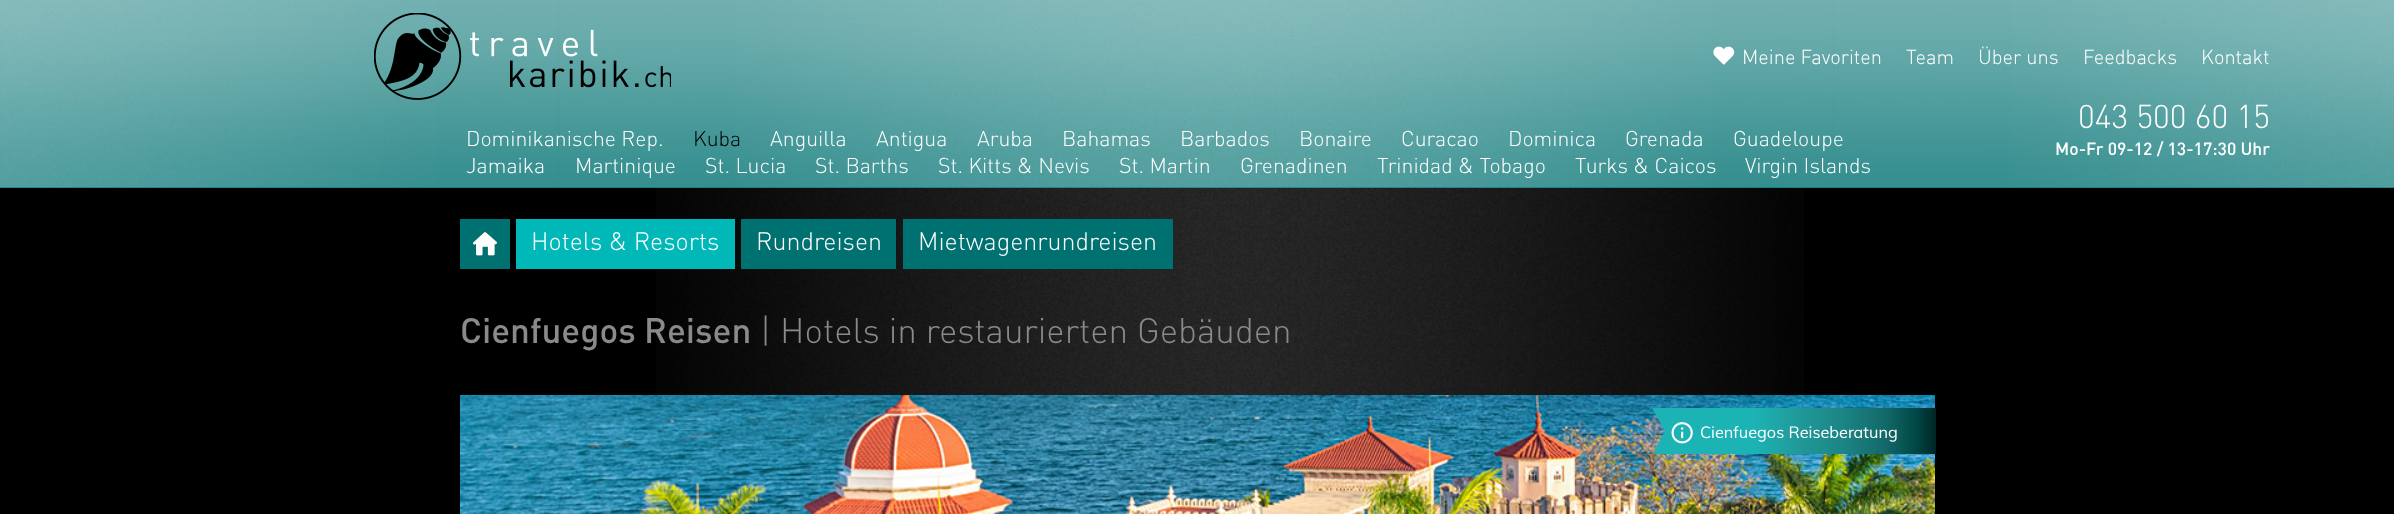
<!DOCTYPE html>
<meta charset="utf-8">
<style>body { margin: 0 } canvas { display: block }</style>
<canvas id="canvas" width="2394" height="514"></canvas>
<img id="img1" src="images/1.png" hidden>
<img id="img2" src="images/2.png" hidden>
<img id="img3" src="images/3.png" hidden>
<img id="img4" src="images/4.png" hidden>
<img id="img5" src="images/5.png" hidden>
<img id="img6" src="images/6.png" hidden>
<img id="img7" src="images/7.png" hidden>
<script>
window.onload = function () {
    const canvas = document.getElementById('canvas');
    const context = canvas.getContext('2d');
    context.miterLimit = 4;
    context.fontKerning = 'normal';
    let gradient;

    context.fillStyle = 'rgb(0, 0, 0)';
    context.fillRect(0, 0, 2394, 514);
    context.drawImage(document.getElementById('img1'), 656, 188, 1148, 207);
    context.fillStyle = 'rgb(0, 113, 113)';
    context.fillRect(0, 187, 2394, 1);
    context.drawImage(document.getElementById('img2'), 0, 0, 2394, 188);
    context.drawImage(document.getElementById('img3'), 374, 13, 297, 87);
    context.drawImage(document.getElementById('img4'), 1713, 46, 22, 19);
    context.fillRect(460, 219, 50, 50);
    context.drawImage(document.getElementById('img5'), 473, 232, 24, 24);
    context.fillStyle = 'rgb(0, 184, 184)';
    context.fillRect(516, 219, 219, 50);
    context.fillStyle = 'rgb(0, 113, 113)';
    context.fillRect(741, 219, 155, 50);
    context.fillRect(903, 219, 270, 50);
    context.drawImage(document.getElementById('img6'), 460, 395, 1475, 119);
    gradient = context.createLinearGradient(1652, 431, 1936, 431);
    gradient.addColorStop(0, 'rgb(28, 179, 180)');
    gradient.addColorStop(0.36, 'rgb(28, 179, 180)');
    gradient.addColorStop(0.51, 'rgb(32, 154, 154)');
    gradient.addColorStop(0.67, 'rgb(28, 133, 133)');
    gradient.addColorStop(0.82, 'rgb(19, 105, 105)');
    gradient.addColorStop(0.93, 'rgb(1, 71, 70)');
    gradient.addColorStop(1, 'rgb(0, 38, 37)');
    context.fillStyle = gradient;
    context.beginPath();
    context.moveTo(1652, 408);
    context.lineTo(1936, 408);
    context.lineTo(1936, 454);
    context.lineTo(1653, 454);
    context.lineTo(1665, 431);
    context.closePath();
    context.fill();
    context.drawImage(document.getElementById('img7'), 1671, 422, 22, 22);
    context.font = '300 20px DIN';
    context.fillStyle = 'rgb(255, 255, 255)';
    context.fillText('Meine Favoriten', 1742, 64);
    context.fillText('Team', 1906, 64);
    context.fillText('Über uns', 1978, 64);
    context.fillText('Feedbacks', 2083, 64);
    context.fillText('Kontakt', 2201, 64);
    context.font = '300 21.25px DIN';
    context.fillText('Dominikanische Rep.', 466, 146);
    context.fillStyle = 'rgb(0, 0, 0)';
    context.fillText('Kuba', 693, 146);
    context.fillStyle = 'rgb(255, 255, 255)';
    context.fillText('Anguilla', 770, 146);
    context.fillText('Antigua', 876, 146);
    context.fillText('Aruba', 977, 146);
    context.fillText('Bahamas', 1062, 146);
    context.fillText('Barbados', 1180, 146);
    context.fillText('Bonaire', 1299, 146);
    context.fillText('Curacao', 1401, 146);
    context.fillText('Dominica', 1508, 146);
    context.fillText('Grenada', 1625, 146);
    context.fillText('Guadeloupe', 1733, 146);
    context.fillText('Jamaika', 466, 173);
    context.fillText('Martinique', 575, 173);
    context.fillText('St. Lucia', 705, 173);
    context.fillText('St. Barths', 815, 173);
    context.fillText('St. Kitts & Nevis', 938, 173);
    context.fillText('St. Martin', 1119, 173);
    context.fillText('Grenadinen', 1240, 173);
    context.fillText('Trinidad & Tobago', 1377, 173);
    context.fillText('Turks & Caicos', 1575, 173);
    context.fillText('Virgin Islands', 1745, 173);
    context.font = '300 32.5px DIN';
    context.fillText('043 500 60 15', 2078, 128);
    context.font = '500 17.5px DIN';
    context.fillText('Mo-Fr 09-12 / 13-17:30 Uhr', 2055, 155);
    context.font = '300 25px DIN';
    context.fillText('Hotels & Resorts', 531, 250);
    context.fillText('Rundreisen', 756, 250);
    context.fillText('Mietwagenrundreisen', 918, 250);
    context.font = '500 35px DIN';
    context.fillStyle = 'rgb(138, 138, 138)';
    context.fillText('Cienfuegos Reisen', 460, 343);
    context.font = '300 35px DIN';
    context.fillText('| Hotels in restaurierten Gebäuden', 760, 343);
    context.font = '16.25px Muli';
    context.fillStyle = 'rgb(255, 255, 255)';
    context.fillText('Cienfuegos Reiseberatung', 1700, 438);
};
</script>
